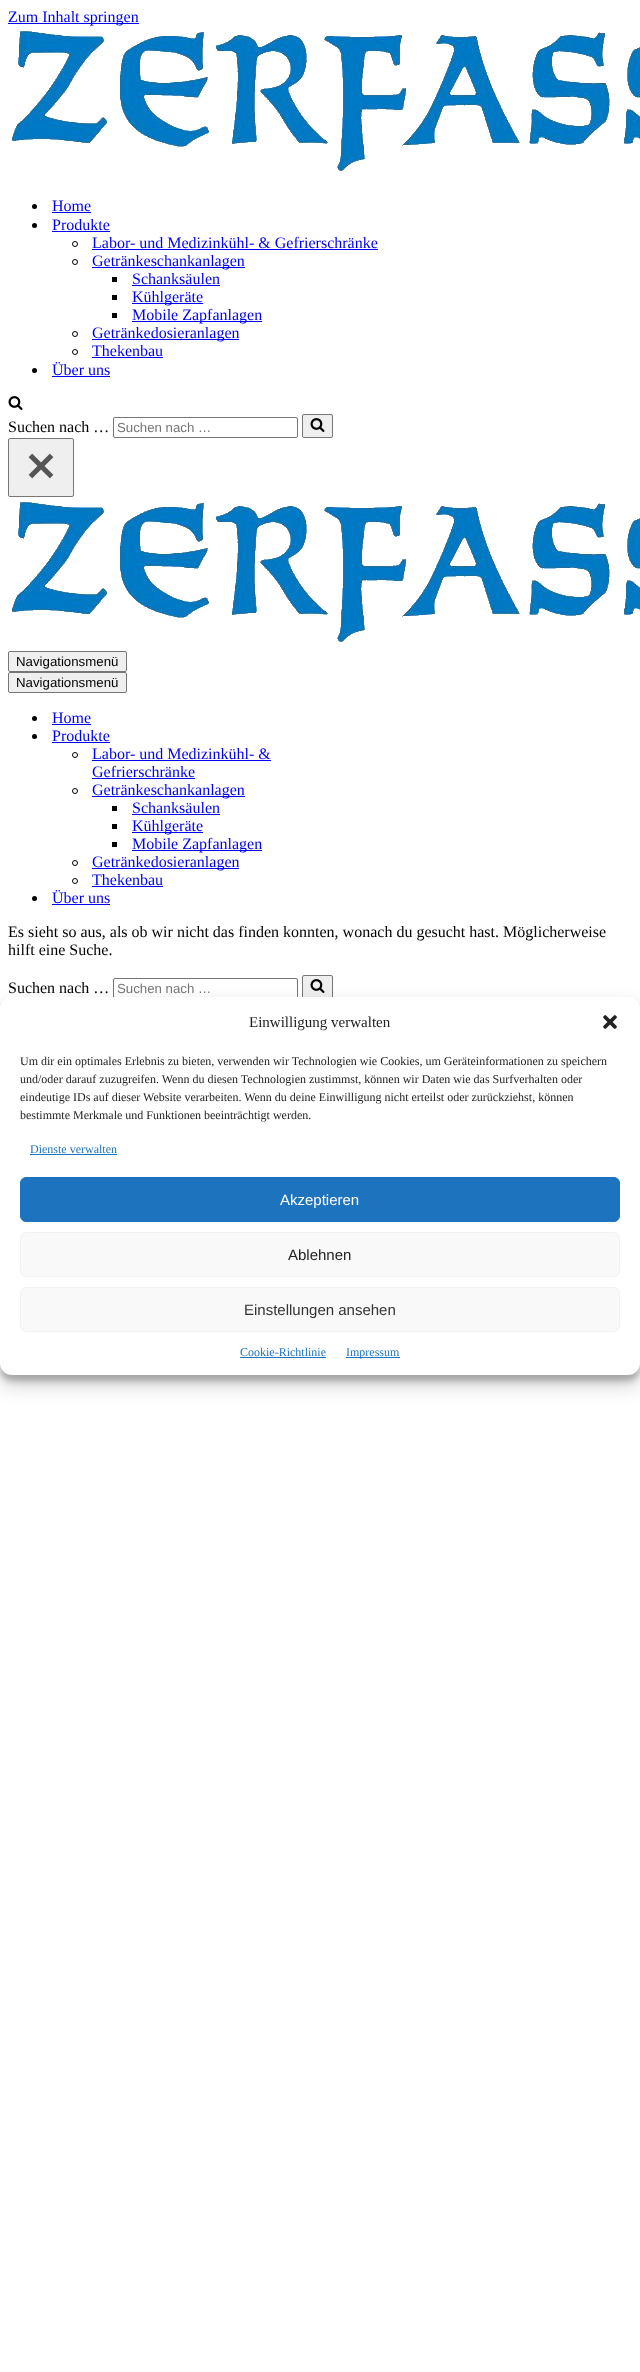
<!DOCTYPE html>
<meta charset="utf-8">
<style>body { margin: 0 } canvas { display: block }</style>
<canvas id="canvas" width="640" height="2372"></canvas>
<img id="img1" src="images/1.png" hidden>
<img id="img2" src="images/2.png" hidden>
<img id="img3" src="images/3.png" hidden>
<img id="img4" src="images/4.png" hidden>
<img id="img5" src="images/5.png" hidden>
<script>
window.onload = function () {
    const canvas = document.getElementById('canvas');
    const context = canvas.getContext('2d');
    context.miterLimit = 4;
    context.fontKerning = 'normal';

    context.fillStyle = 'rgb(255, 255, 255)';
    context.fillRect(0, 0, 640, 2372);
    context.fillStyle = 'rgb(0, 0, 238)';
    context.fillRect(8, 23, 131, 1);
    context.drawImage(document.getElementById('img1'), 12, 31, 628, 140);
    context.fillStyle = 'rgb(0, 0, 0)';
    context.beginPath();
    context.arc(34.5, 206.5, 2.5, 0, 2 * Math.PI);
    context.fill();
    context.fillStyle = 'rgb(0, 0, 238)';
    context.fillRect(52, 212, 39, 1);
    context.fillStyle = 'rgb(0, 0, 0)';
    context.beginPath();
    context.arc(34.5, 225.5, 2.5, 0, 2 * Math.PI);
    context.fill();
    context.fillStyle = 'rgb(0, 0, 238)';
    context.fillRect(52, 231, 58, 1);
    context.beginPath();
    context.arc(75, 244, 2.5, 0, 2 * Math.PI);
    context.strokeStyle = 'rgb(0, 0, 0)';
    context.stroke();
    context.fillRect(92, 249, 286, 1);
    context.beginPath();
    context.arc(75, 262, 2.5, 0, 2 * Math.PI);
    context.stroke();
    context.fillRect(92, 267, 153, 1);
    context.fillStyle = 'rgb(0, 0, 0)';
    context.fillRect(112, 277, 5, 5);
    context.fillStyle = 'rgb(0, 0, 238)';
    context.fillRect(132, 285, 88, 1);
    context.fillStyle = 'rgb(0, 0, 0)';
    context.fillRect(112, 295, 5, 5);
    context.fillStyle = 'rgb(0, 0, 238)';
    context.fillRect(132, 303, 71, 1);
    context.fillStyle = 'rgb(0, 0, 0)';
    context.fillRect(112, 313, 5, 5);
    context.fillStyle = 'rgb(0, 0, 238)';
    context.fillRect(132, 321, 130, 1);
    context.beginPath();
    context.arc(75, 334, 2.5, 0, 2 * Math.PI);
    context.stroke();
    context.fillRect(92, 339, 147, 1);
    context.beginPath();
    context.arc(75, 352, 2.5, 0, 2 * Math.PI);
    context.stroke();
    context.fillRect(92, 357, 71, 1);
    context.fillStyle = 'rgb(0, 0, 0)';
    context.beginPath();
    context.arc(34.5, 370.5, 2.5, 0, 2 * Math.PI);
    context.fill();
    context.fillStyle = 'rgb(0, 0, 238)';
    context.fillRect(52, 376, 58, 1);
    context.drawImage(document.getElementById('img2'), 8, 396, 15, 14);
    context.beginPath();
    context.roundRect(113.5, 417.5, 184, 20, 1.5);
    context.strokeStyle = 'rgb(118, 118, 118)';
    context.stroke();
    context.fillStyle = 'rgb(239, 239, 239)';
    context.beginPath();
    context.roundRect(302.5, 414.5, 30, 23, 1.5);
    context.fill();
    context.stroke();
    context.drawImage(document.getElementById('img3'), 310, 418, 15, 14);
    context.beginPath();
    context.roundRect(8.5, 438.5, 65, 58, 1.5);
    context.fill();
    context.stroke();
    context.drawImage(document.getElementById('img4'), 28, 453, 26, 26);
    context.drawImage(document.getElementById('img1'), 12, 502, 628, 140);
    context.beginPath();
    context.roundRect(8.5, 651.5, 118, 20, 1.5);
    context.fill();
    context.stroke();
    context.beginPath();
    context.roundRect(8.5, 672.5, 118, 20, 1.5);
    context.fill();
    context.stroke();
    context.fillStyle = 'rgb(0, 0, 0)';
    context.beginPath();
    context.arc(34.5, 718.5, 2.5, 0, 2 * Math.PI);
    context.fill();
    context.fillStyle = 'rgb(0, 0, 238)';
    context.fillRect(52, 724, 39, 1);
    context.fillStyle = 'rgb(0, 0, 0)';
    context.beginPath();
    context.arc(34.5, 736.5, 2.5, 0, 2 * Math.PI);
    context.fill();
    context.fillStyle = 'rgb(0, 0, 238)';
    context.fillRect(52, 742, 58, 1);
    context.beginPath();
    context.arc(75, 755, 2.5, 0, 2 * Math.PI);
    context.strokeStyle = 'rgb(0, 0, 0)';
    context.stroke();
    context.fillRect(92, 760, 179, 1);
    context.fillRect(92, 778, 103, 1);
    context.beginPath();
    context.arc(75, 791, 2.5, 0, 2 * Math.PI);
    context.stroke();
    context.fillRect(92, 796, 153, 1);
    context.fillStyle = 'rgb(0, 0, 0)';
    context.fillRect(112, 806, 5, 5);
    context.fillStyle = 'rgb(0, 0, 238)';
    context.fillRect(132, 814, 88, 1);
    context.fillStyle = 'rgb(0, 0, 0)';
    context.fillRect(112, 824, 5, 5);
    context.fillStyle = 'rgb(0, 0, 238)';
    context.fillRect(132, 832, 71, 1);
    context.fillStyle = 'rgb(0, 0, 0)';
    context.fillRect(112, 842, 5, 5);
    context.fillStyle = 'rgb(0, 0, 238)';
    context.fillRect(132, 850, 130, 1);
    context.beginPath();
    context.arc(75, 863, 2.5, 0, 2 * Math.PI);
    context.stroke();
    context.fillRect(92, 868, 147, 1);
    context.beginPath();
    context.arc(75, 881, 2.5, 0, 2 * Math.PI);
    context.stroke();
    context.fillRect(92, 886, 71, 1);
    context.fillStyle = 'rgb(0, 0, 0)';
    context.beginPath();
    context.arc(34.5, 898.5, 2.5, 0, 2 * Math.PI);
    context.fill();
    context.fillStyle = 'rgb(0, 0, 238)';
    context.fillRect(52, 904, 58, 1);
    context.beginPath();
    context.roundRect(113.5, 978.5, 184, 20, 1.5);
    context.strokeStyle = 'rgb(118, 118, 118)';
    context.stroke();
    context.fillStyle = 'rgb(239, 239, 239)';
    context.beginPath();
    context.roundRect(302.5, 975.5, 30, 23, 1.5);
    context.fill();
    context.stroke();
    context.drawImage(document.getElementById('img3'), 310, 979, 15, 14);
    context.fillStyle = 'rgba(0, 0, 0, 0.23)';
    context.filter = 'blur(3px)';
    context.beginPath();
    context.roundRect(0, 1003, 640, 378, 12);
    context.fill();
    context.filter = 'none';
    context.fillStyle = 'rgba(0, 0, 0, 0.19)';
    context.filter = 'blur(10px)';
    context.beginPath();
    context.roundRect(0, 1007, 640, 378, 12);
    context.fill();
    context.filter = 'none';
    context.fillStyle = 'rgb(255, 255, 255)';
    context.beginPath();
    context.roundRect(0, 997, 640, 378, 12);
    context.fill();
    context.drawImage(document.getElementById('img5'), 603, 1015, 14, 14);
    context.fillStyle = 'rgb(30, 115, 190)';
    context.fillRect(30, 1154, 87, 1);
    context.beginPath();
    context.roundRect(20.5, 1177.5, 599, 44, 5.5);
    context.fill();
    context.strokeStyle = 'rgb(30, 115, 190)';
    context.stroke();
    context.fillStyle = 'rgb(249, 249, 249)';
    context.beginPath();
    context.roundRect(20.5, 1232.5, 599, 44, 5.5);
    context.fill();
    context.strokeStyle = 'rgb(242, 242, 242)';
    context.stroke();
    context.beginPath();
    context.roundRect(20.5, 1287.5, 599, 44, 5.5);
    context.fill();
    context.stroke();
    context.fillStyle = 'rgb(30, 115, 190)';
    context.fillRect(240, 1357, 86, 1);
    context.fillRect(346, 1357, 54, 1);
    context.font = '16px Liberation Serif';
    context.fillStyle = 'rgb(0, 0, 238)';
    context.fillText('Zum Inhalt springen', 8, 22);
    context.fillText('Home', 52, 211);
    context.fillText('Produkte', 52, 230);
    context.fillText('Labor- und Medizinkühl- & Gefrierschränke', 92, 248);
    context.fillText('Getränkeschankanlagen', 92, 266);
    context.fillText('Schanksäulen', 132, 284);
    context.fillText('Kühlgeräte', 132, 302);
    context.fillText('Mobile Zapfanlagen', 132, 320);
    context.fillText('Getränkedosieranlagen', 92, 338);
    context.fillText('Thekenbau', 92, 356);
    context.fillText('Über uns', 52, 375);
    context.fillStyle = 'rgb(0, 0, 0)';
    context.fillText('Suchen nach …', 8, 432);
    context.font = '13.25px Liberation Sans';
    context.fillStyle = 'rgb(117, 117, 117)';
    context.fillText('Suchen nach …', 117, 432);
    context.fillStyle = 'rgb(0, 0, 0)';
    context.fillText('Navigationsmenü', 16, 666);
    context.fillText('Navigationsmenü', 16, 687);
    context.font = '16px Liberation Serif';
    context.fillStyle = 'rgb(0, 0, 238)';
    context.fillText('Home', 52, 723);
    context.fillText('Produkte', 52, 741);
    context.fillText('Labor- und Medizinkühl- &', 92, 759);
    context.fillText('Gefrierschränke', 92, 777);
    context.fillText('Getränkeschankanlagen', 92, 795);
    context.fillText('Schanksäulen', 132, 813);
    context.fillText('Kühlgeräte', 132, 831);
    context.fillText('Mobile Zapfanlagen', 132, 849);
    context.fillText('Getränkedosieranlagen', 92, 867);
    context.fillText('Thekenbau', 92, 885);
    context.fillText('Über uns', 52, 903);
    context.fillStyle = 'rgb(0, 0, 0)';
    context.fillText('Es sieht so aus, als ob wir nicht das finden konnten, wonach du gesucht hast. Möglicherweise', 8, 937);
    context.fillText('hilft eine Suche.', 8, 955);
    context.fillText('Suchen nach …', 8, 993);
    context.font = '13.25px Liberation Sans';
    context.fillStyle = 'rgb(117, 117, 117)';
    context.fillText('Suchen nach …', 117, 993);
    context.font = '15px Liberation Serif';
    context.fillStyle = 'rgb(34, 34, 34)';
    context.fillText('Einwilligung verwalten', 249, 1027);
    context.font = '12px Liberation Serif';
    context.fillText('Um dir ein optimales Erlebnis zu bieten, verwenden wir Technologien wie Cookies, um Geräteinformationen zu speichern', 20, 1065);
    context.fillText('und/oder darauf zuzugreifen. Wenn du diesen Technologien zustimmst, können wir Daten wie das Surfverhalten oder', 20, 1083);
    context.fillText('eindeutige IDs auf dieser Website verarbeiten. Wenn du deine Einwilligung nicht erteilst oder zurückziehst, können', 20, 1101);
    context.fillText('bestimmte Merkmale und Funktionen beeinträchtigt werden.', 20, 1119);
    context.fillStyle = 'rgb(30, 115, 190)';
    context.fillText('Dienste verwalten', 30, 1153);
    context.font = '15px Liberation Sans';
    context.fillStyle = 'rgb(255, 255, 255)';
    context.fillText('Akzeptieren', 280, 1205);
    context.fillStyle = 'rgb(34, 34, 34)';
    context.fillText('Ablehnen', 288, 1260);
    context.fillStyle = 'rgb(51, 51, 51)';
    context.fillText('Einstellungen ansehen', 244, 1315);
    context.font = '12px Liberation Serif';
    context.fillStyle = 'rgb(30, 115, 190)';
    context.fillText('Cookie-Richtlinie', 240, 1356);
    context.fillText('Impressum', 346, 1356);
};
</script>
